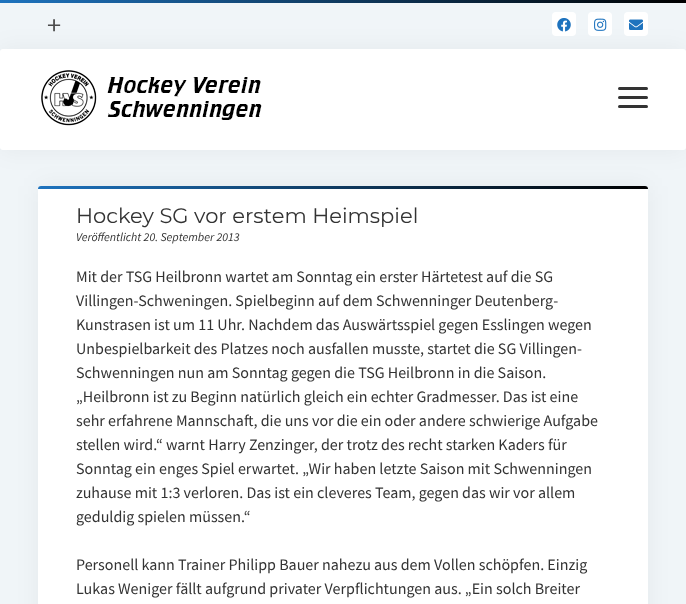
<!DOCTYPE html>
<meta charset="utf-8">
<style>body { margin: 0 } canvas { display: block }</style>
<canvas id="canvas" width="686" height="604"></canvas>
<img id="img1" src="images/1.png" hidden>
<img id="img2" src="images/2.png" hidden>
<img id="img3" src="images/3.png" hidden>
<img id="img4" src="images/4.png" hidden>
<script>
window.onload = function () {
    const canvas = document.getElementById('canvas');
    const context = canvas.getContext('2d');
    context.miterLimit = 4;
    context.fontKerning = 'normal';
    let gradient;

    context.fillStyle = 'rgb(240, 245, 248)';
    context.fillRect(0, 0, 686, 604);
    gradient = context.createLinearGradient(0, 1.5, 686, 1.5);
    gradient.addColorStop(0, 'rgb(30, 115, 190)');
    gradient.addColorStop(1, 'rgb(0, 0, 0)');
    context.fillStyle = gradient;
    context.fillRect(0, 0, 686, 3);
    context.fillStyle = 'rgba(0, 0, 0, 0.05)';
    context.filter = 'blur(12px)';
    context.beginPath();
    context.roundRect(0, 49, 686, 101, 3);
    context.fill();
    context.filter = 'none';
    context.fillStyle = 'rgb(255, 255, 255)';
    context.beginPath();
    context.roundRect(0, 49, 686, 101, 3);
    context.fill();
    context.drawImage(document.getElementById('img1'), 41, 70, 221, 56);
    context.fillStyle = 'rgb(51, 51, 51)';
    context.beginPath();
    context.roundRect(618, 87, 30, 3, 1.5);
    context.fill();
    context.beginPath();
    context.roundRect(618, 96, 30, 3, 1.5);
    context.fill();
    context.beginPath();
    context.roundRect(618, 105, 30, 3, 1.5);
    context.fill();
    context.fillStyle = 'rgb(255, 255, 255)';
    context.beginPath();
    context.roundRect(552, 12, 24, 24, 4);
    context.fill();
    context.drawImage(document.getElementById('img2'), 557, 18, 14, 14);
    context.beginPath();
    context.roundRect(588, 12, 24, 24, 4);
    context.fill();
    context.drawImage(document.getElementById('img3'), 594, 18, 13, 13);
    context.beginPath();
    context.roundRect(624, 12, 24, 24, 4);
    context.fill();
    context.drawImage(document.getElementById('img4'), 629, 19, 14, 11);
    context.fillStyle = 'rgba(0, 0, 0, 0.05)';
    context.filter = 'blur(12px)';
    context.beginPath();
    context.roundRect(38, 186, 610, 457, 3);
    context.fill();
    context.filter = 'none';
    context.fillStyle = 'rgb(255, 255, 255)';
    context.beginPath();
    context.roundRect(38, 186, 610, 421, 3);
    context.fill();
    gradient = context.createLinearGradient(38, 188, 648, 187);
    gradient.addColorStop(0, 'rgb(30, 115, 190)');
    gradient.addColorStop(1, 'rgb(0, 0, 0)');
    context.fillStyle = gradient;
    context.beginPath();
    context.roundRect(38, 186, 610, 3, [3, 3, 0, 0]);
    context.fill();
    context.font = '100 28px Montserrat';
    context.fillStyle = 'rgb(76, 76, 76)';
    context.fillText('+', 46, 35);
    context.font = '100 21px Montserrat';
    context.fillStyle = 'rgb(51, 51, 51)';
    context.fillText('Hockey SG vor erstem Heimspiel', 76, 223);
    context.font = 'italic 12px Source Sans Pro';
    context.fillText('Veröffentlicht 20. September 2013', 76, 241);
    context.font = '16px Source Sans Pro';
    context.fillText('Mit der TSG Heilbronn wartet am Sonntag ein erster Härtetest auf die SG', 76, 282);
    context.fillText('Villingen-Schweningen. Spielbeginn auf dem Schwenninger Deutenberg-', 76, 306);
    context.fillText('Kunstrasen ist um 11 Uhr. Nachdem das Auswärtsspiel gegen Esslingen wegen', 76, 330);
    context.fillText('Unbespielbarkeit des Platzes noch ausfallen musste, startet die SG Villingen-', 76, 354);
    context.fillText('Schwenningen nun am Sonntag gegen die TSG Heilbronn in die Saison.', 76, 378);
    context.fillText('„Heilbronn ist zu Beginn natürlich gleich ein echter Gradmesser. Das ist eine', 76, 402);
    context.fillText('sehr erfahrene Mannschaft, die uns vor die ein oder andere schwierige Aufgabe', 76, 426);
    context.fillText('stellen wird.“ warnt Harry Zenzinger, der trotz des recht starken Kaders für', 76, 450);
    context.fillText('Sonntag ein enges Spiel erwartet. „Wir haben letzte Saison mit Schwenningen', 76, 474);
    context.fillText('zuhause mit 1:3 verloren. Das ist ein cleveres Team, gegen das wir vor allem', 76, 498);
    context.fillText('geduldig spielen müssen.“', 76, 522);
    context.fillText('Personell kann Trainer Philipp Bauer nahezu aus dem Vollen schöpfen. Einzig', 76, 570);
    context.fillText('Lukas Weniger fällt aufgrund privater Verpflichtungen aus. „Ein solch Breiter', 76, 594);
};
</script>
